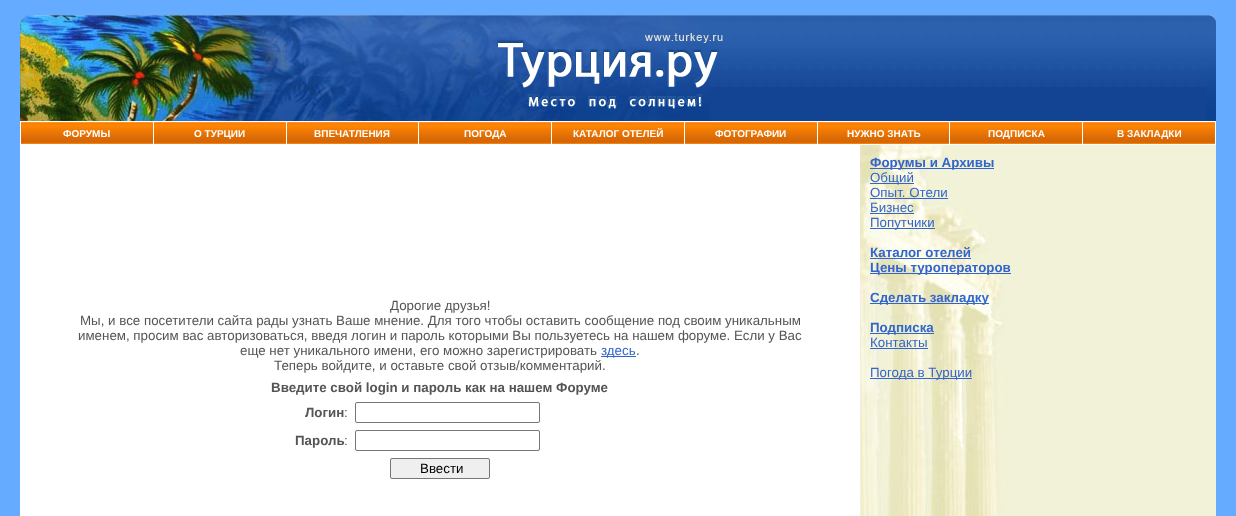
<!DOCTYPE html>
<meta charset="utf-8">
<style>body { margin: 0 } canvas { display: block }</style>
<canvas id="canvas" width="1236" height="516"></canvas>
<img id="img1" src="images/1.png" hidden>
<img id="img2" src="images/2.png" hidden>
<img id="img3" src="images/3.png" hidden>
<img id="img4" src="images/4.png" hidden>
<img id="img5" src="images/5.png" hidden>
<img id="img6" src="images/6.png" hidden>
<img id="img7" src="images/7.png" hidden>
<script>
window.onload = function () {
    const canvas = document.getElementById('canvas');
    const context = canvas.getContext('2d');
    context.miterLimit = 4;
    context.fontKerning = 'normal';

    context.fillStyle = 'rgb(101, 171, 255)';
    context.fillRect(0, 0, 1236, 516);
    context.fillStyle = 'rgb(19, 68, 147)';
    context.fillRect(710, 87, 496, 34);
    context.drawImage(document.getElementById('img1'), 710, 15, 496, 72);
    context.drawImage(document.getElementById('img2'), 20, 15, 690, 106);
    context.drawImage(document.getElementById('img3'), 497, 33, 226, 76);
    context.drawImage(document.getElementById('img4'), 1206, 15, 10, 106);
    context.fillStyle = 'rgb(255, 255, 255)';
    context.fillRect(20, 121, 1196, 24);
    context.drawImage(document.getElementById('img5'), 21, 122, 132, 22);
    context.drawImage(document.getElementById('img5'), 154, 122, 132, 22);
    context.drawImage(document.getElementById('img6'), 287, 122, 131, 22);
    context.drawImage(document.getElementById('img5'), 419, 122, 132, 22);
    context.drawImage(document.getElementById('img5'), 552, 122, 132, 22);
    context.drawImage(document.getElementById('img5'), 685, 122, 132, 22);
    context.drawImage(document.getElementById('img6'), 818, 122, 131, 22);
    context.drawImage(document.getElementById('img5'), 950, 122, 132, 22);
    context.drawImage(document.getElementById('img5'), 1083, 122, 132, 22);
    context.fillRect(20, 145, 840, 371);
    context.fillStyle = 'rgb(51, 102, 204)';
    context.fillRect(601, 356, 35, 1);
    context.beginPath();
    context.roundRect(355.5, 402.5, 184, 20, 1.5);
    context.strokeStyle = 'rgb(118, 118, 118)';
    context.stroke();
    context.beginPath();
    context.roundRect(355.5, 430.5, 184, 20, 1.5);
    context.stroke();
    context.fillStyle = 'rgb(239, 239, 239)';
    context.beginPath();
    context.roundRect(390.5, 458.5, 99, 20, 1.5);
    context.fill();
    context.stroke();
    context.fillStyle = 'rgb(242, 242, 216)';
    context.fillRect(1004, 145, 212, 371);
    context.drawImage(document.getElementById('img7'), 860, 145, 144, 371);
    context.fillStyle = 'rgb(51, 102, 204)';
    context.fillRect(870, 168, 124, 1);
    context.fillRect(870, 183, 44, 1);
    context.fillRect(870, 198, 78, 1);
    context.fillRect(870, 213, 44, 1);
    context.fillRect(870, 228, 65, 1);
    context.fillRect(870, 258, 101, 1);
    context.fillRect(870, 273, 141, 1);
    context.fillRect(870, 303, 119, 1);
    context.fillRect(870, 333, 64, 1);
    context.fillRect(870, 348, 58, 1);
    context.fillRect(870, 378, 102, 1);
    context.font = 'bold 10px Liberation Sans';
    context.fillStyle = 'rgb(255, 255, 255)';
    context.fillText('ФОРУМЫ', 63, 137);
    context.fillText('О ТУРЦИИ', 194, 137);
    context.fillText('ВПЕЧАТЛЕНИЯ', 314, 137);
    context.fillText('ПОГОДА', 464, 137);
    context.fillText('КАТАЛОГ ОТЕЛЕЙ', 573, 137);
    context.fillText('ФОТОГРАФИИ', 715, 137);
    context.fillText('НУЖНО ЗНАТЬ', 847, 137);
    context.fillText('ПОДПИСКА', 988, 137);
    context.fillText('В ЗАКЛАДКИ', 1117, 137);
    context.font = '13.33px Liberation Sans';
    context.fillStyle = 'rgb(85, 85, 85)';
    context.fillText('Дорогие друзья!', 390, 310);
    context.fillText('Мы, и все посетители сайта рады узнать Ваше мнение. Для того чтобы оставить сообщение под своим уникальным', 80, 325);
    context.fillText('именем, просим вас авторизоваться, введя логин и пароль которыми Вы пользуетесь на нашем форуме. Если у Вас', 78, 340);
    context.fillText('еще нет уникального имени, его можно зарегистрировать', 240, 355);
    context.fillStyle = 'rgb(51, 102, 204)';
    context.fillText('здесь', 601, 355);
    context.fillStyle = 'rgb(85, 85, 85)';
    context.fillText('.', 636, 355);
    context.fillText('Теперь войдите, и оставьте свой отзыв/комментарий.', 274, 370);
    context.font = 'bold 13.33px Liberation Sans';
    context.fillText('Введите свой login и пароль как на нашем Форуме', 271, 392);
    context.fillText('Логин', 305, 417);
    context.font = '13.33px Liberation Sans';
    context.fillText(':', 344, 417);
    context.font = 'bold 13.33px Liberation Sans';
    context.fillText('Пароль', 295, 445);
    context.font = '13.33px Liberation Sans';
    context.fillText(':', 344, 445);
    context.fillStyle = 'rgb(0, 0, 0)';
    context.fillText('Ввести', 420, 473);
    context.font = 'bold 13.33px Liberation Sans';
    context.fillStyle = 'rgb(51, 102, 204)';
    context.fillText('Форумы и Архивы', 870, 167);
    context.font = '13.33px Liberation Sans';
    context.fillText('Общий', 870, 182);
    context.fillText('Опыт. Отели', 870, 197);
    context.fillText('Бизнес', 870, 212);
    context.fillText('Попутчики', 870, 227);
    context.font = 'bold 13.33px Liberation Sans';
    context.fillText('Каталог отелей', 870, 257);
    context.fillText('Цены туроператоров', 870, 272);
    context.fillText('Сделать закладку', 870, 302);
    context.fillText('Подписка', 870, 332);
    context.font = '13.33px Liberation Sans';
    context.fillText('Контакты', 870, 347);
    context.fillText('Погода в Турции', 870, 377);
};
</script>
